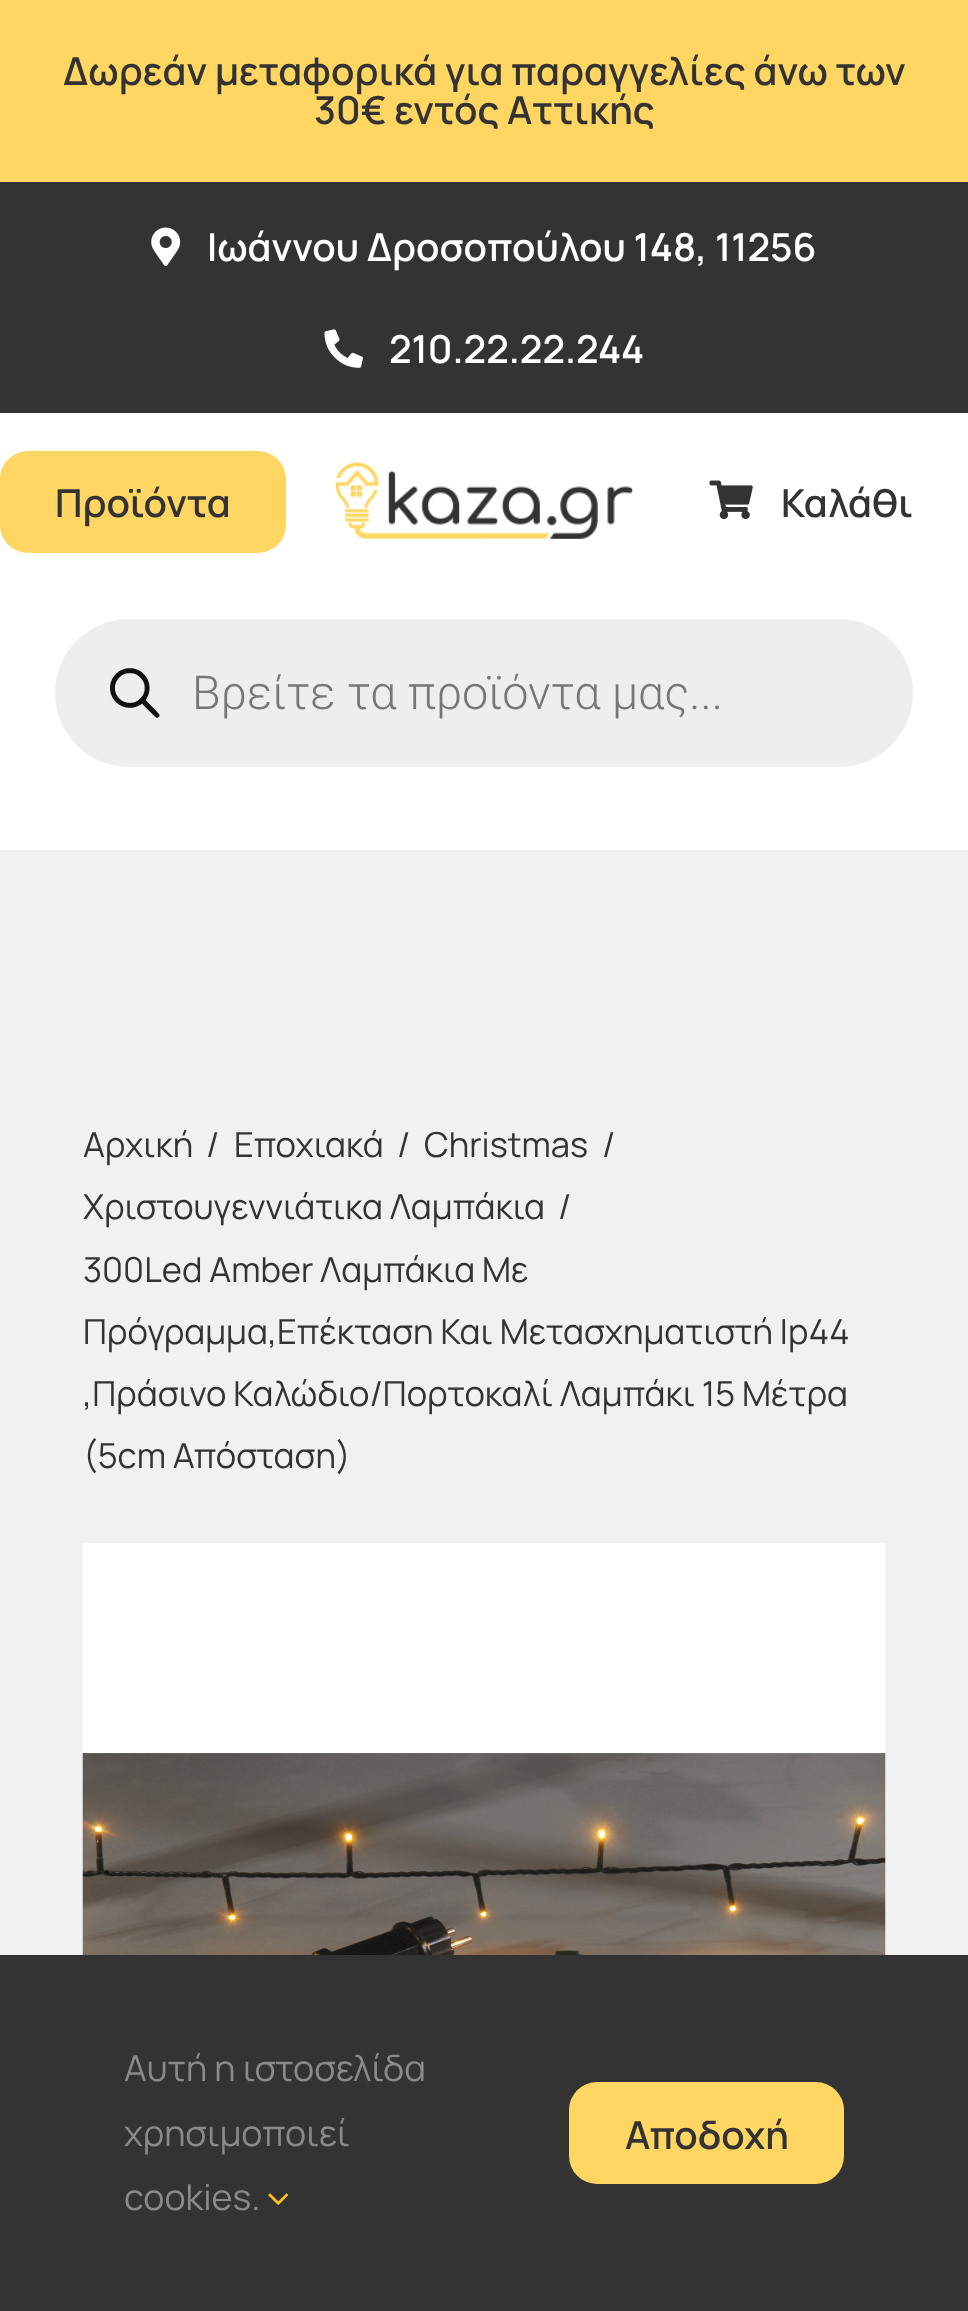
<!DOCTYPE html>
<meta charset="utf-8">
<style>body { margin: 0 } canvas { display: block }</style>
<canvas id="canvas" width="968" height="2311"></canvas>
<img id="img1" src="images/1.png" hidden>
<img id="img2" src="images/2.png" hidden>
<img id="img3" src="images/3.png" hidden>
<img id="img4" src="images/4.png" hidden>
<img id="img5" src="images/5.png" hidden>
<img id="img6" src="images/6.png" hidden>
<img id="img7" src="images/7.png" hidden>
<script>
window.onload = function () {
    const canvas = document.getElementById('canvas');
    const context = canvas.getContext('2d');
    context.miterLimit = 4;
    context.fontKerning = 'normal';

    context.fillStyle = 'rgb(241, 241, 241)';
    context.fillRect(0, 0, 968, 2311);
    context.fillStyle = 'rgb(255, 214, 98)';
    context.fillRect(0, 0, 968, 182);
    context.fillStyle = 'rgb(51, 51, 51)';
    context.fillRect(0, 182, 968, 231);
    context.drawImage(document.getElementById('img1'), 151, 227, 30, 39);
    context.drawImage(document.getElementById('img2'), 324, 329, 39, 39);
    context.fillStyle = 'rgb(255, 255, 255)';
    context.fillRect(0, 413, 968, 437);
    context.fillStyle = 'rgb(255, 214, 98)';
    context.beginPath();
    context.roundRect(0, 451, 286, 102, 28);
    context.fill();
    context.drawImage(document.getElementById('img3'), 335, 462, 298, 77);
    context.drawImage(document.getElementById('img4'), 709, 480, 44, 40);
    context.fillStyle = 'rgb(238, 238, 238)';
    context.beginPath();
    context.roundRect(55, 619, 858, 148, 74);
    context.fill();
    context.drawImage(document.getElementById('img5'), 110, 668, 50, 50);
    context.drawImage(document.getElementById('img6'), 82, 1543, 804, 412);
    context.fillStyle = 'rgb(51, 51, 51)';
    context.fillRect(0, 1955, 968, 356);
    context.drawImage(document.getElementById('img7'), 268, 2193, 21, 12);
    context.fillStyle = 'rgb(255, 214, 98)';
    context.beginPath();
    context.roundRect(569, 2082, 275, 102, 28);
    context.fill();
    context.font = '600 38.5px Manrope';
    context.fillStyle = 'rgb(51, 51, 51)';
    context.fillText('Δωρεάν μεταφορικά για παραγγελίες άνω των', 63, 85);
    context.fillText('30€ εντός Αττικής', 314, 124);
    context.fillStyle = 'rgb(255, 255, 255)';
    context.fillText('Ιωάννου Δροσοπούλου 148, 11256', 207, 261);
    context.fillText('210.22.22.244', 389, 363);
    context.fillStyle = 'rgb(51, 51, 51)';
    context.fillText('Προϊόντα', 55, 517);
    context.fillText('Καλάθι', 781, 517);
    context.font = '300 46.75px Roboto';
    context.fillStyle = 'rgb(119, 119, 119)';
    context.fillText('Βρείτε τα προϊόντα μας...', 192, 709);
    context.font = '34.5px Manrope';
    context.fillStyle = 'rgb(51, 51, 51)';
    context.fillText('Αρχική', 83, 1157);
    context.fillText('/', 206, 1157);
    context.fillText('Εποχιακά', 234, 1157);
    context.fillText('/', 397, 1157);
    context.fillText('Christmas', 424, 1157);
    context.fillText('/', 602, 1157);
    context.fillText('Χριστουγεννιάτικα Λαμπάκια', 83, 1219);
    context.fillText('/', 558, 1219);
    context.fillText('300Led Amber Λαμπάκια Με', 83, 1282);
    context.fillText('Πρόγραμμα,Επέκταση Και Μετασχηματιστή Ip44', 83, 1344);
    context.fillText(',Πράσινο Καλώδιο/Πορτοκαλί Λαμπάκι 15 Μέτρα', 83, 1406);
    context.fillText('(5cm Απόσταση)', 83, 1468);
    context.font = '35.75px Manrope';
    context.fillStyle = 'rgb(140, 137, 137)';
    context.fillText('Αυτή η ιστοσελίδα', 124, 2081);
    context.fillText('χρησιμοποιεί', 124, 2146);
    context.fillText('cookies.', 124, 2210);
    context.font = '600 38.5px Manrope';
    context.fillStyle = 'rgb(51, 51, 51)';
    context.fillText('Αποδοχή', 625, 2149);
};
</script>
